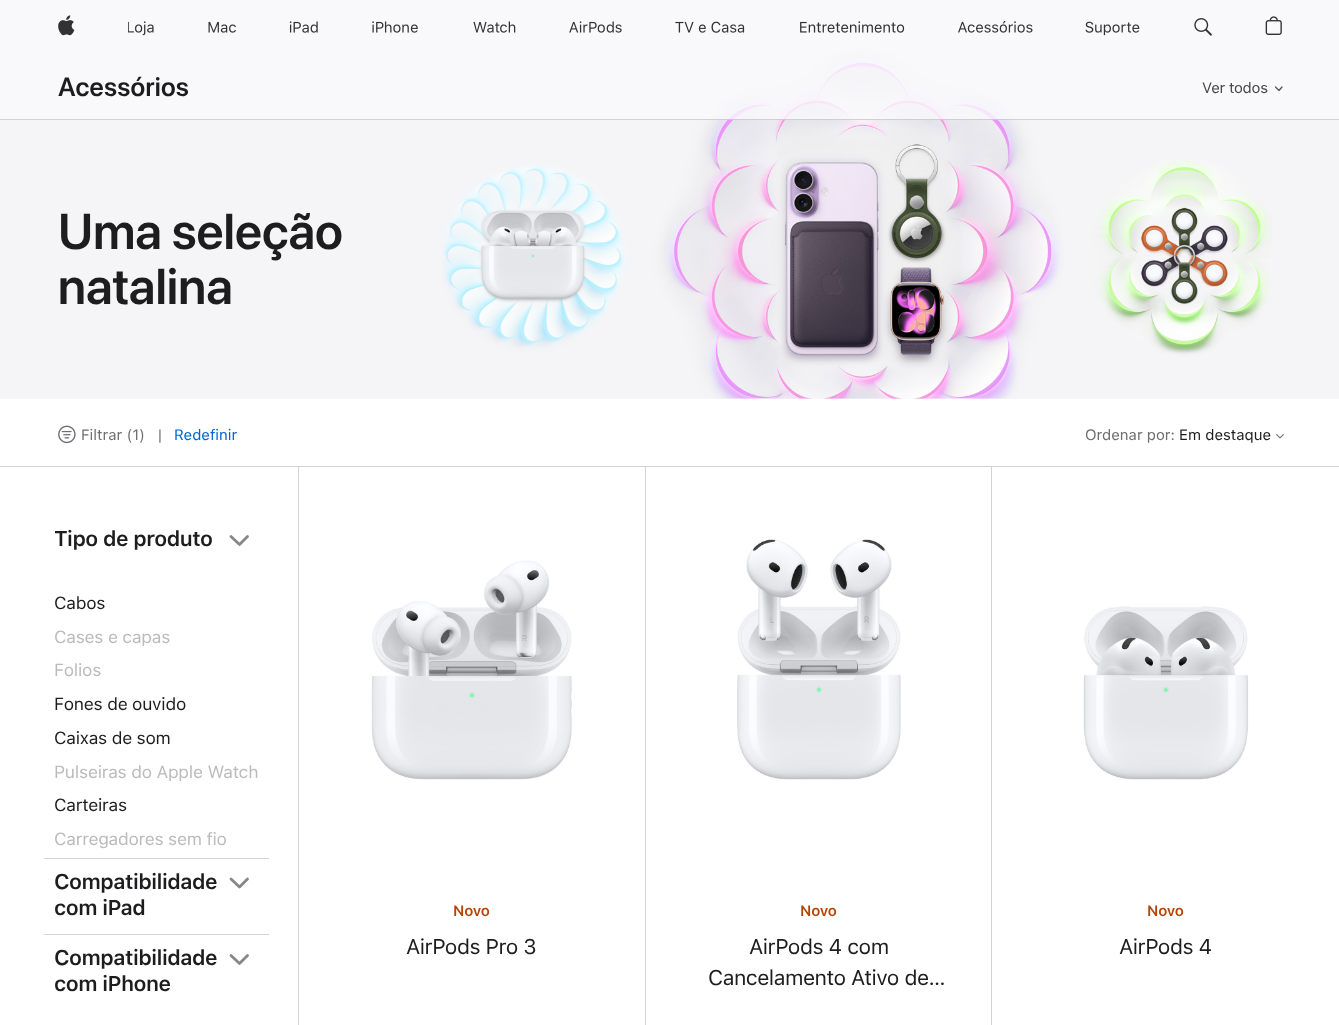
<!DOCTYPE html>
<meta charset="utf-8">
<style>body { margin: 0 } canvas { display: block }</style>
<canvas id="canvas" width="1339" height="1025"></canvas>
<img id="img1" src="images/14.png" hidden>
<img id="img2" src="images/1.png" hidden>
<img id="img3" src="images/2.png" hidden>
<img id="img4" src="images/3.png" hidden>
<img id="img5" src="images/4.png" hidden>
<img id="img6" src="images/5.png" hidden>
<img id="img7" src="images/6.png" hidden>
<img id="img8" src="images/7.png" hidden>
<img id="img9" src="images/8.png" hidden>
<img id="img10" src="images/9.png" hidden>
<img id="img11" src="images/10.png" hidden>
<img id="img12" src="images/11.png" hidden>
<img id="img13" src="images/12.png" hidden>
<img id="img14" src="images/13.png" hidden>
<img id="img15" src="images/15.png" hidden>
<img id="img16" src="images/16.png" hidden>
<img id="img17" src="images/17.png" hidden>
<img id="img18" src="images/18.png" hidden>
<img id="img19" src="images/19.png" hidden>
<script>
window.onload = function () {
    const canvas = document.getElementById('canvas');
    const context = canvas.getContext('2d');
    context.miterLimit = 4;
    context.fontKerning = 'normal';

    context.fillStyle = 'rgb(255, 255, 255)';
    context.fillRect(0, 0, 1339, 1025);
    context.fillStyle = 'rgb(245, 245, 247)';
    context.fillRect(0, 0, 1339, 399);
    context.drawImage(document.getElementById('img1'), 442, 47, 830, 352);
    context.fillStyle = 'rgba(250, 250, 252, 0.8)';
    context.fillRect(0, 0, 1339, 120);
    context.drawImage(document.getElementById('img2'), 58, 15, 17, 21);
    context.drawImage(document.getElementById('img3'), 128, 21, 26, 15);
    context.drawImage(document.getElementById('img4'), 208, 21, 28, 12);
    context.drawImage(document.getElementById('img5'), 289, 21, 29, 12);
    context.drawImage(document.getElementById('img6'), 372, 21, 46, 12);
    context.drawImage(document.getElementById('img7'), 473, 21, 43, 12);
    context.drawImage(document.getElementById('img8'), 569, 21, 53, 12);
    context.drawImage(document.getElementById('img9'), 675, 21, 70, 12);
    context.drawImage(document.getElementById('img10'), 800, 21, 105, 12);
    context.drawImage(document.getElementById('img11'), 958, 21, 75, 12);
    context.drawImage(document.getElementById('img12'), 1085, 21, 55, 15);
    context.drawImage(document.getElementById('img13'), 1194, 18, 18, 18);
    context.drawImage(document.getElementById('img14'), 1265, 16, 17, 19);
    context.fillStyle = 'rgba(0, 0, 0, 0.16)';
    context.fillRect(0, 119, 1339, 1);
    context.save();
    context.beginPath();
    context.rect(1275, 83, 8, 8);
    context.clip();
    context.beginPath();
    context.moveTo(1282, 87);
    context.lineTo(1279, 90.5);
    context.lineTo(1275.5, 87);
    context.strokeStyle = 'rgb(90, 90, 90)';
    context.lineWidth = 1.4;
    context.lineCap = 'round';
    context.lineJoin = 'round';
    context.stroke();
    context.restore();
    context.drawImage(document.getElementById('img15'), 58, 425, 18, 19);
    context.drawImage(document.getElementById('img16'), 1276, 434, 8, 5);
    context.fillStyle = 'rgb(210, 210, 215)';
    context.fillRect(298, 466, 1, 559);
    context.fillRect(645, 466, 1, 559);
    context.fillRect(991, 466, 1, 559);
    context.fillRect(0, 466, 1339, 1);
    context.beginPath();
    context.moveTo(247.5, 536.5);
    context.lineTo(239.5, 544.5);
    context.lineTo(231, 536.5);
    context.strokeStyle = 'rgb(134, 134, 139)';
    context.lineWidth = 2.8;
    context.lineCap = 'round';
    context.lineJoin = 'round';
    context.stroke();
    context.fillRect(44, 858, 225, 1);
    context.beginPath();
    context.moveTo(247.5, 879);
    context.lineTo(239.5, 887);
    context.lineTo(231, 879);
    context.stroke();
    context.fillRect(44, 934, 225, 1);
    context.beginPath();
    context.moveTo(247.5, 955.5);
    context.lineTo(239.5, 963.5);
    context.lineTo(231, 955.5);
    context.stroke();
    context.drawImage(document.getElementById('img17'), 371, 560, 201, 220);
    context.drawImage(document.getElementById('img18'), 737, 539, 164, 241);
    context.drawImage(document.getElementById('img19'), 1083, 606, 166, 174);
    context.letterSpacing = '0.25px';
    context.font = '600 26.25px SF Pro Display';
    context.fillStyle = 'rgb(29, 29, 31)';
    context.fillText('Acessórios', 58, 96);
    context.letterSpacing = '-0.25px';
    context.font = '15px SF Pro Text';
    context.fillStyle = 'rgb(73, 73, 75)';
    context.fillText('Ver todos', 1202, 93);
    context.letterSpacing = '0px';
    context.font = '600 50px SF Pro Display';
    context.fillStyle = 'rgb(29, 29, 31)';
    context.fillText('Uma seleção', 58, 249);
    context.fillText('natalina', 58, 304);
    context.font = '15px SF Pro Text';
    context.fillStyle = 'rgb(110, 110, 115)';
    context.fillText('Filtrar (1)', 81, 440);
    context.letterSpacing = '-0.25px';
    context.fillText('|', 158, 440);
    context.letterSpacing = '0px';
    context.fillStyle = 'rgb(0, 102, 204)';
    context.fillText('Redefinir', 174, 440);
    context.fillStyle = 'rgb(110, 110, 115)';
    context.fillText('Ordenar por:', 1085, 440);
    context.fillStyle = 'rgb(29, 29, 31)';
    context.fillText('Em destaque', 1179, 440);
    context.letterSpacing = '-0.5px';
    context.font = '600 21.25px SF Pro Text';
    context.fillText('Tipo de produto', 54, 546);
    context.letterSpacing = '-0.25px';
    context.font = '17.5px SF Pro Text';
    context.fillText('Cabos', 54, 609);
    context.fillStyle = 'rgb(187, 187, 188)';
    context.fillText('Cases e capas', 54, 643);
    context.fillText('Folios', 54, 676);
    context.fillStyle = 'rgb(29, 29, 31)';
    context.fillText('Fones de ouvido', 54, 710);
    context.fillText('Caixas de som', 54, 744);
    context.fillStyle = 'rgb(187, 187, 188)';
    context.fillText('Pulseiras do Apple Watch', 54, 778);
    context.fillStyle = 'rgb(29, 29, 31)';
    context.fillText('Carteiras', 54, 811);
    context.fillStyle = 'rgb(187, 187, 188)';
    context.fillText('Carregadores sem fio', 54, 845);
    context.letterSpacing = '-0.5px';
    context.font = '600 21.25px SF Pro Text';
    context.fillStyle = 'rgb(29, 29, 31)';
    context.fillText('Compatibilidade', 54, 889);
    context.fillText('com iPad', 54, 915);
    context.fillText('Compatibilidade', 54, 965);
    context.fillText('com iPhone', 54, 991);
    context.letterSpacing = '-0.25px';
    context.font = '600 15px SF Pro Text';
    context.fillStyle = 'rgb(182, 68, 0)';
    context.fillText('Novo', 453, 916);
    context.letterSpacing = '-0.5px';
    context.font = '21.25px SF Pro Text';
    context.fillStyle = 'rgb(29, 29, 31)';
    context.fillText('AirPods Pro 3', 406, 954);
    context.letterSpacing = '-0.25px';
    context.font = '600 15px SF Pro Text';
    context.fillStyle = 'rgb(182, 68, 0)';
    context.fillText('Novo', 800, 916);
    context.letterSpacing = '-0.5px';
    context.font = '21.25px SF Pro Text';
    context.fillStyle = 'rgb(29, 29, 31)';
    context.fillText('AirPods 4 com', 749, 954);
    context.fillText('Cancelamento Ativo de…', 708, 985);
    context.letterSpacing = '-0.25px';
    context.font = '600 15px SF Pro Text';
    context.fillStyle = 'rgb(182, 68, 0)';
    context.fillText('Novo', 1147, 916);
    context.letterSpacing = '-0.5px';
    context.font = '21.25px SF Pro Text';
    context.fillStyle = 'rgb(29, 29, 31)';
    context.fillText('AirPods 4', 1119, 954);
};
</script>
